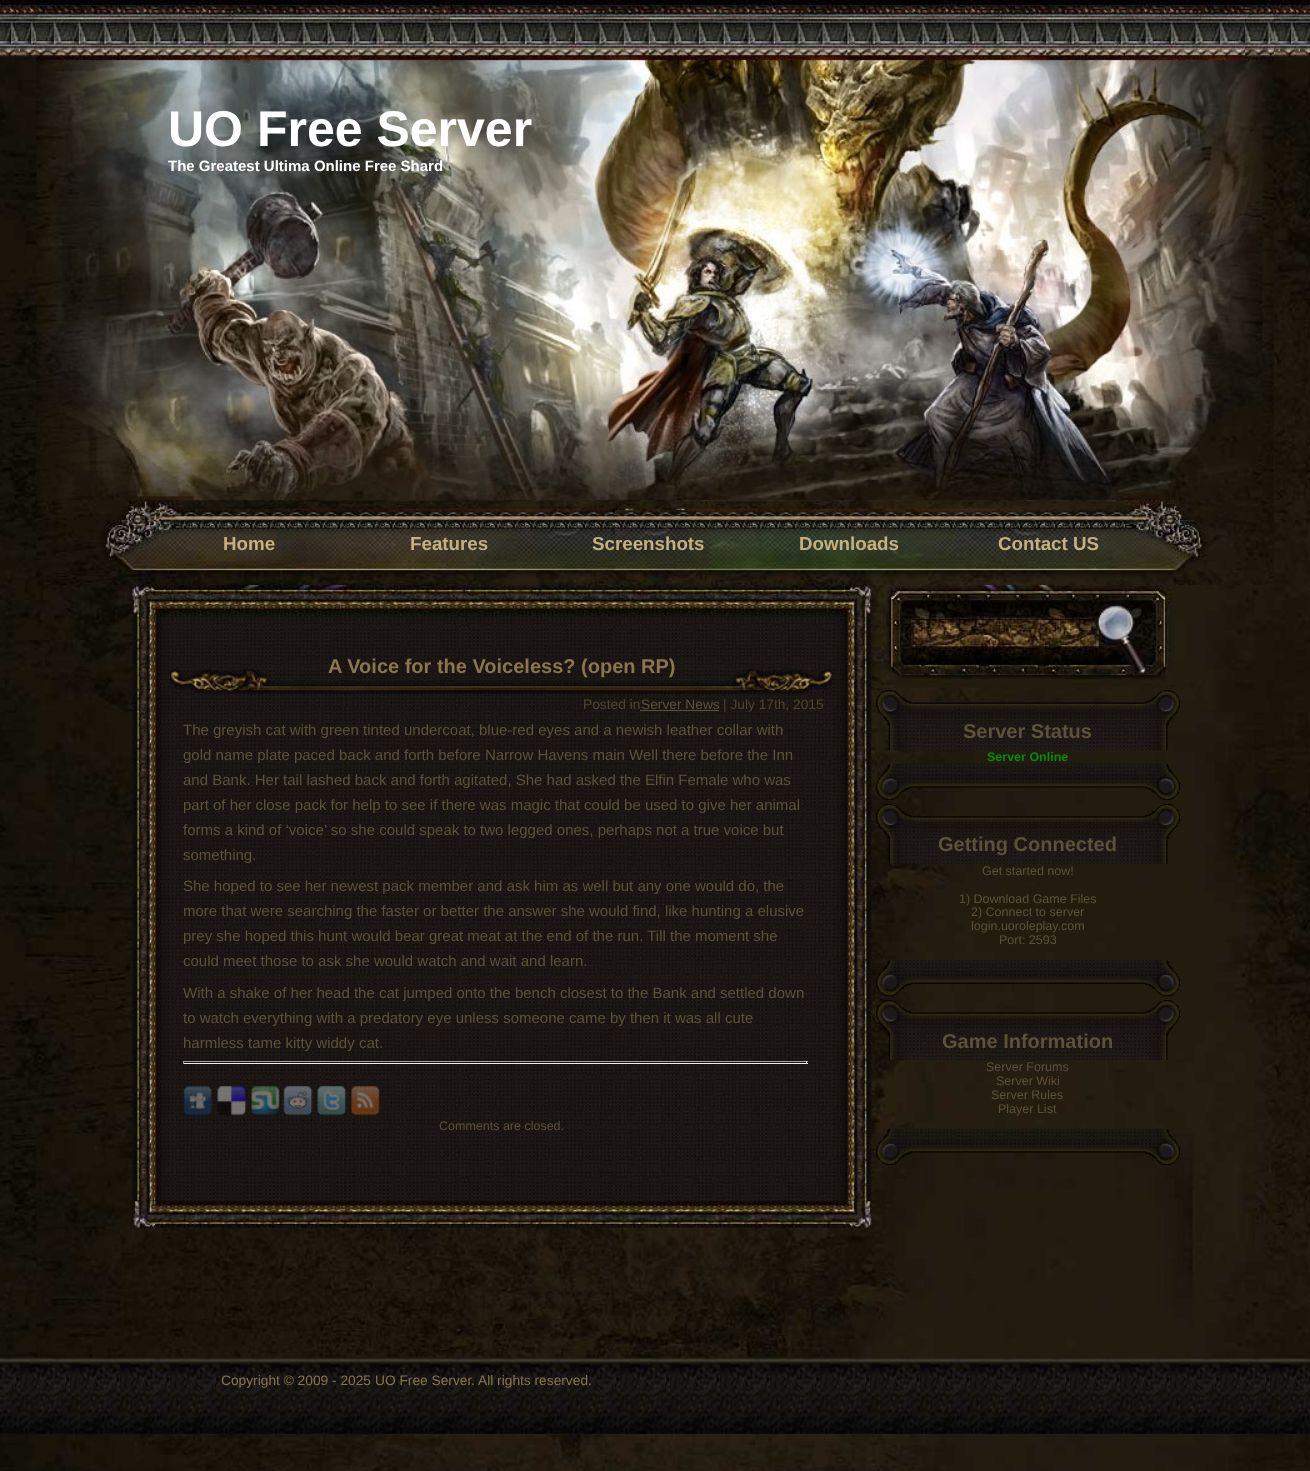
<!DOCTYPE html>
<meta charset="utf-8">
<style>body { margin: 0 } canvas { display: block }</style>
<canvas id="canvas" width="1310" height="1471"></canvas>
<img id="img1" src="images/1.png" hidden>
<img id="img2" src="images/2.png" hidden>
<img id="img3" src="images/3.png" hidden>
<img id="img4" src="images/4.png" hidden>
<img id="img5" src="images/5.png" hidden>
<img id="img6" src="images/6.png" hidden>
<img id="img7" src="images/7.png" hidden>
<img id="img8" src="images/8.png" hidden>
<img id="img9" src="images/9.png" hidden>
<img id="img10" src="images/10.png" hidden>
<img id="img11" src="images/11.png" hidden>
<img id="img12" src="images/12.png" hidden>
<img id="img13" src="images/13.png" hidden>
<img id="img14" src="images/14.png" hidden>
<img id="img15" src="images/15.png" hidden>
<img id="img16" src="images/16.png" hidden>
<img id="img17" src="images/17.png" hidden>
<img id="img18" src="images/18.png" hidden>
<img id="img19" src="images/19.png" hidden>
<img id="img20" src="images/20.png" hidden>
<img id="img21" src="images/21.png" hidden>
<img id="img22" src="images/22.png" hidden>
<img id="img23" src="images/23.png" hidden>
<script>
window.onload = function () {
    const canvas = document.getElementById('canvas');
    const context = canvas.getContext('2d');
    context.miterLimit = 4;
    context.fontKerning = 'normal';

    context.fillStyle = 'rgb(255, 255, 255)';
    context.fillRect(0, 0, 1310, 1471);
    context.drawImage(document.getElementById('img1'), 0, 56, 1310, 1415);
    context.drawImage(document.getElementById('img2'), 0, 1357, 1310, 77);
    context.drawImage(document.getElementById('img3'), 0, 0, 1310, 57);
    context.drawImage(document.getElementById('img4'), 36, 0, 1238, 585);
    context.drawImage(document.getElementById('img5'), 36, 1133, 1157, 225);
    context.drawImage(document.getElementById('img6'), 132, 585, 740, 33);
    context.drawImage(document.getElementById('img7'), 132, 617, 740, 553);
    context.drawImage(document.getElementById('img8'), 170, 668, 663, 26);
    context.fillStyle = 'rgb(93, 81, 58)';
    context.fillRect(640, 710, 79, 1);
    context.fillStyle = 'rgb(159, 159, 159)';
    context.fillRect(183, 1061, 625, 1);
    context.fillStyle = 'rgb(238, 238, 238)';
    context.fillRect(806, 1061, 1, 3);
    context.fillRect(183, 1063, 625, 1);
    context.fillStyle = 'rgb(159, 159, 159)';
    context.fillRect(183, 1061, 1, 3);
    context.drawImage(document.getElementById('img9'), 183, 1086, 30, 30);
    context.drawImage(document.getElementById('img10'), 217, 1086, 30, 30);
    context.drawImage(document.getElementById('img11'), 251, 1086, 29, 30);
    context.drawImage(document.getElementById('img12'), 283, 1086, 30, 29);
    context.drawImage(document.getElementById('img13'), 317, 1086, 30, 29);
    context.drawImage(document.getElementById('img14'), 351, 1086, 29, 29);
    context.drawImage(document.getElementById('img15'), 132, 1170, 740, 32);
    context.drawImage(document.getElementById('img16'), 132, 1201, 740, 27);
    context.drawImage(document.getElementById('img17'), 871, 585, 304, 103);
    context.drawImage(document.getElementById('img18'), 876, 690, 305, 60);
    context.drawImage(document.getElementById('img19'), 876, 763, 305, 38);
    context.drawImage(document.getElementById('img20'), 876, 803, 305, 61);
    context.drawImage(document.getElementById('img21'), 876, 960, 305, 37);
    context.drawImage(document.getElementById('img22'), 876, 1000, 305, 60);
    context.drawImage(document.getElementById('img23'), 876, 1128, 305, 37);
    context.font = 'bold 50px Liberation Sans';
    context.fillStyle = 'rgb(255, 255, 255)';
    context.fillText('UO Free Server', 168, 146);
    context.font = 'bold 15px Liberation Sans';
    context.fillText('The Greatest Ultima Online Free Shard', 168, 171);
    context.font = 'bold 18.75px Liberation Sans';
    context.fillStyle = 'rgb(198, 176, 130)';
    context.fillText('Home', 223, 550);
    context.fillText('Features', 410, 550);
    context.fillText('Screenshots', 592, 550);
    context.fillText('Downloads', 799, 550);
    context.fillText('Contact US', 998, 550);
    context.font = 'bold 20px Liberation Sans';
    context.fillStyle = 'rgb(136, 118, 79)';
    context.fillText('A Voice for the Voiceless? (open RP)', 328, 673);
    context.font = '13.75px Liberation Sans';
    context.fillStyle = 'rgb(81, 69, 42)';
    context.fillText('Posted in', 583, 709);
    context.fillStyle = 'rgb(93, 81, 58)';
    context.fillText('Server News', 641, 709);
    context.fillStyle = 'rgb(81, 69, 42)';
    context.fillText('| July 17th, 2015', 723, 709);
    context.font = '15px Liberation Sans';
    context.fillStyle = 'rgb(93, 81, 58)';
    context.fillText('The greyish cat with green tinted undercoat, blue-red eyes and a newish leather collar with', 183, 735);
    context.fillText('gold name plate paced back and forth before Narrow Havens main Well there before the Inn', 183, 760);
    context.fillText('and Bank. Her tail lashed back and forth agitated, She had asked the Elfin Female who was', 183, 785);
    context.fillText('part of her close pack for help to see if there was magic that could be used to give her animal', 183, 810);
    context.fillText('forms a kind of ‘voice’ so she could speak to two legged ones, perhaps not a true voice but', 183, 835);
    context.fillText('something.', 183, 860);
    context.fillText('She hoped to see her newest pack member and ask him as well but any one would do, the', 183, 891);
    context.fillText('more that were searching the faster or better the answer she would find, like hunting a elusive', 183, 916);
    context.fillText('prey she hoped this hunt would bear great meat at the end of the run. Till the moment she', 183, 941);
    context.fillText('could meet those to ask she would watch and wait and learn.', 183, 966);
    context.fillText('With a shake of her head the cat jumped onto the bench closest to the Bank and settled down', 183, 998);
    context.fillText('to watch everything with a predatory eye unless someone came by then it was all cute', 183, 1023);
    context.fillText('harmless tame kitty widdy cat.', 183, 1048);
    context.font = '12.5px Liberation Sans';
    context.fillText('Comments are closed.', 439, 1130);
    context.font = 'bold 20px Liberation Sans';
    context.fillText('Server Status', 963, 738);
    context.font = 'bold 12.5px Liberation Sans';
    context.fillStyle = 'rgb(4, 142, 4)';
    context.fillText('Server Online', 987, 761);
    context.font = 'bold 20px Liberation Sans';
    context.fillStyle = 'rgb(93, 81, 58)';
    context.fillText('Getting Connected', 938, 851);
    context.font = '12.5px Liberation Sans';
    context.fillText('Get started now!', 982, 875);
    context.fillText('1) Download Game Files', 959, 903);
    context.fillText('2) Connect to server', 971, 916);
    context.fillText('login.uoroleplay.com', 971, 930);
    context.fillText('Port: 2593', 999, 944);
    context.font = 'bold 20px Liberation Sans';
    context.fillText('Game Information', 942, 1048);
    context.font = '12.5px Liberation Sans';
    context.fillText('Server Forums', 986, 1071);
    context.fillText('Server Wiki', 996, 1085);
    context.fillText('Server Rules', 991, 1099);
    context.fillText('Player List', 998, 1113);
    context.font = '13.75px Liberation Sans';
    context.fillStyle = 'rgb(136, 118, 79)';
    context.fillText('Copyright © 2009 - 2025', 221, 1385);
    context.fillText('UO Free Server', 375, 1385);
    context.fillText('.', 471, 1385);
    context.fillText('All rights reserved.', 478, 1385);
};
</script>
